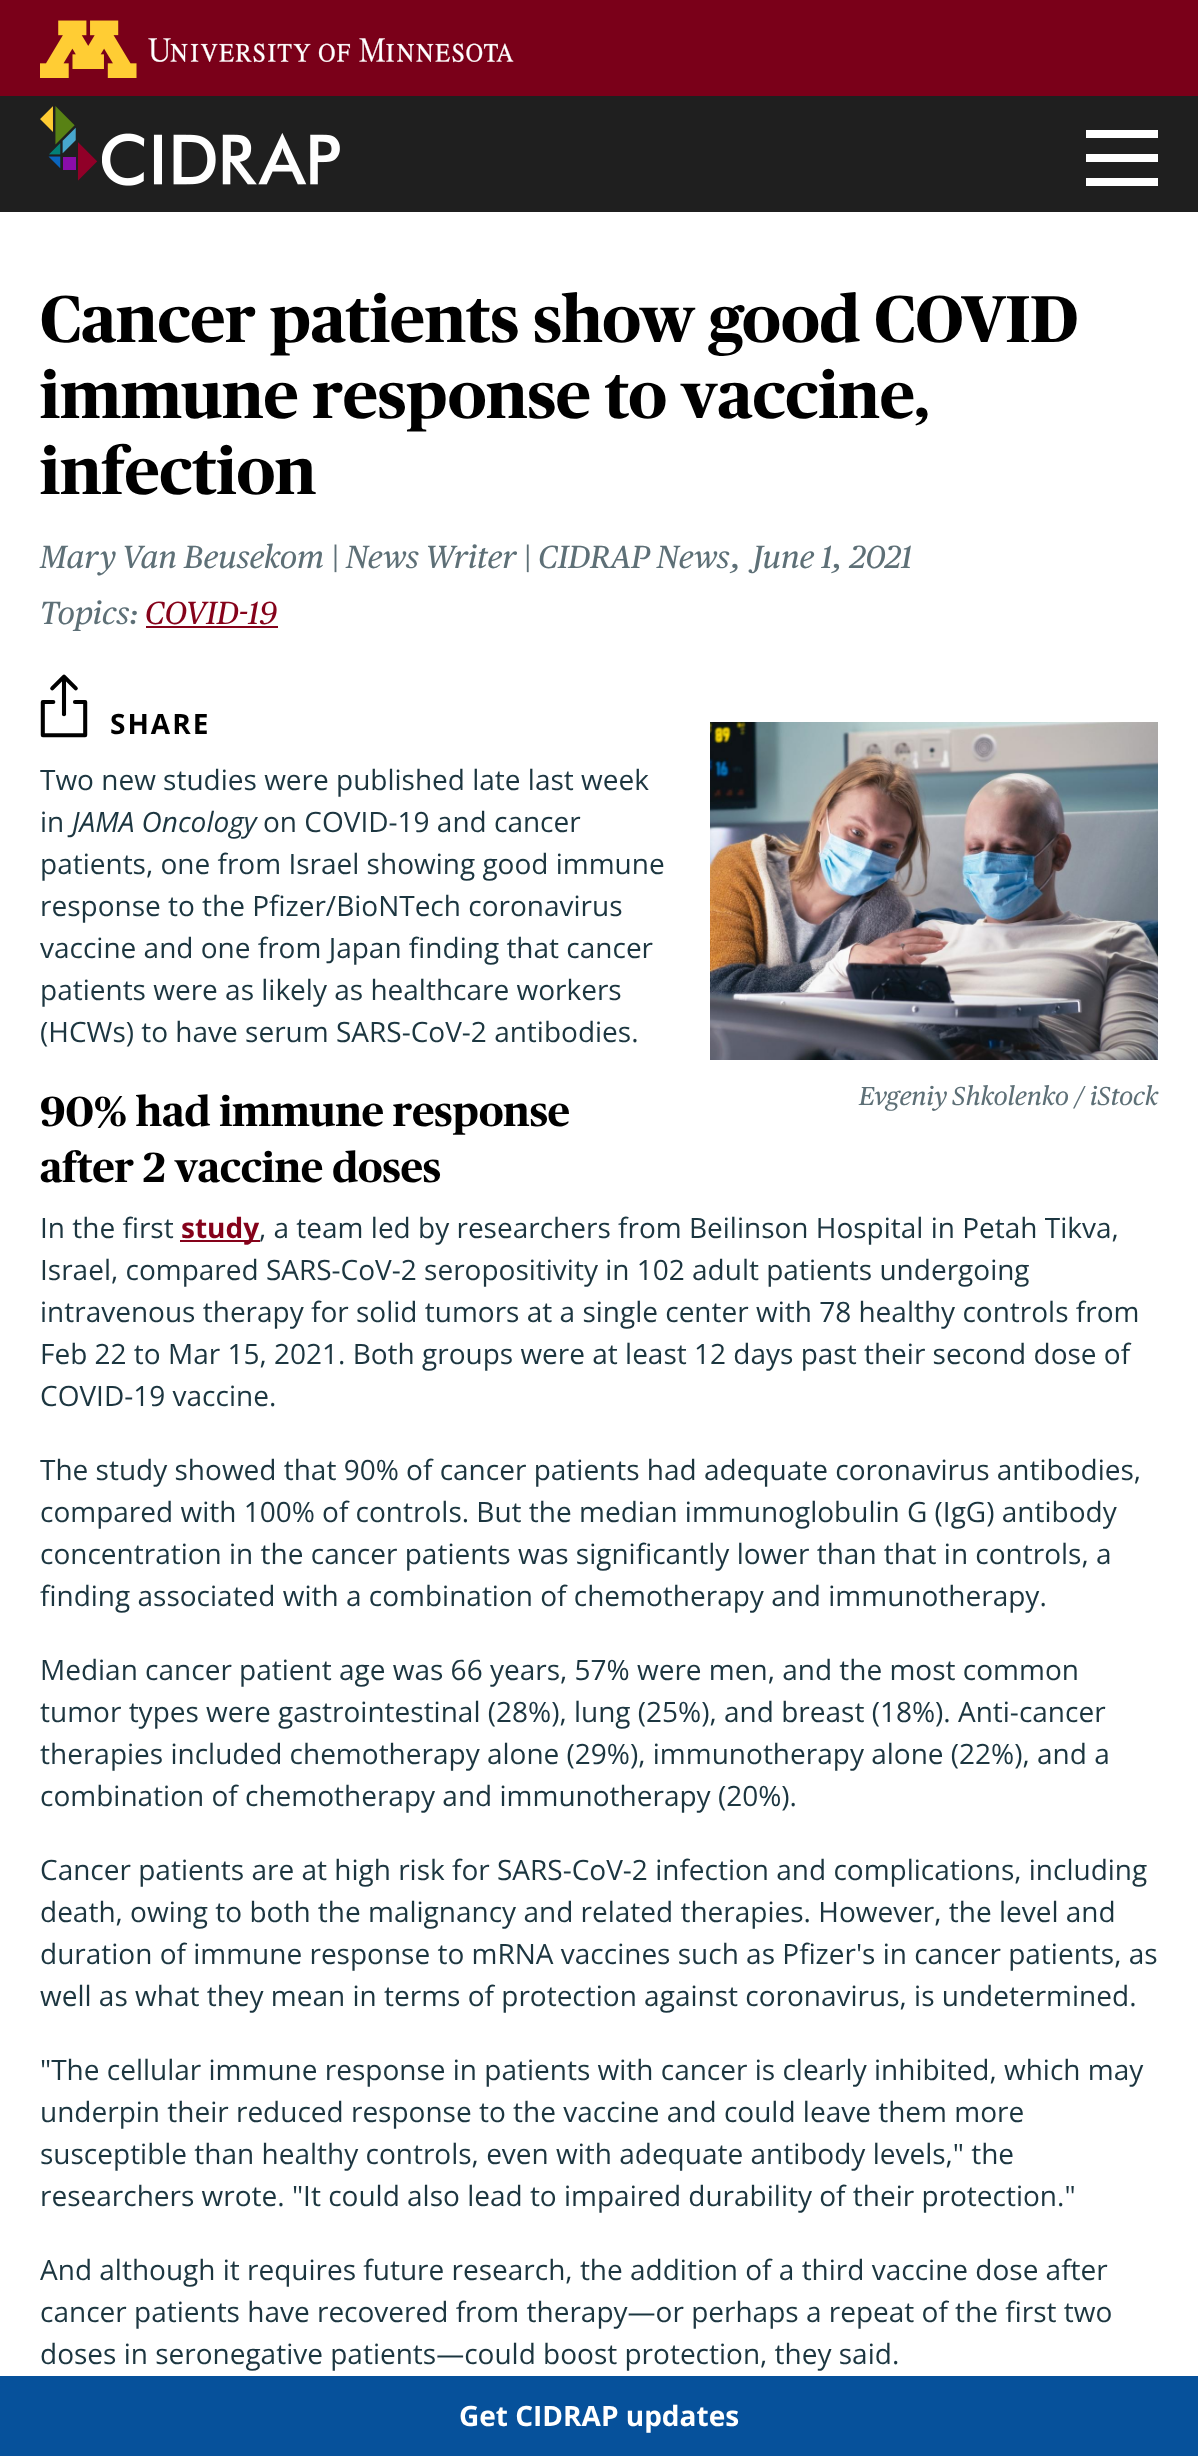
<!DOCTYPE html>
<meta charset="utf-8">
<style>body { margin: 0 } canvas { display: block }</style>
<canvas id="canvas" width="1198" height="2456"></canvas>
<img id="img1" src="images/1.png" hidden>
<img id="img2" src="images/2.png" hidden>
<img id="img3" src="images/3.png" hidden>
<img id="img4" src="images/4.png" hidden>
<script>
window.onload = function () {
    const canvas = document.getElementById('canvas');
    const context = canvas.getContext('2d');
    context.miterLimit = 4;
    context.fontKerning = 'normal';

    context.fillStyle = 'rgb(255, 255, 255)';
    context.fillRect(0, 0, 1198, 2456);
    context.fillStyle = 'rgb(122, 0, 25)';
    context.fillRect(0, 0, 1198, 96);
    context.drawImage(document.getElementById('img1'), 40, 20, 474, 58);
    context.fillStyle = 'rgb(31, 31, 31)';
    context.fillRect(0, 96, 1198, 116);
    context.drawImage(document.getElementById('img2'), 40, 106, 300, 80);
    context.fillStyle = 'rgb(255, 255, 255)';
    context.fillRect(1086, 130, 72, 8);
    context.fillRect(1086, 154, 72, 8);
    context.fillRect(1086, 178, 72, 8);
    context.fillStyle = 'rgb(133, 2, 26)';
    context.fillRect(146, 626, 132, 2);
    context.drawImage(document.getElementById('img3'), 710, 722, 448, 338);
    context.drawImage(document.getElementById('img4'), 40, 674, 48, 64);
    context.fillRect(180, 1240, 80, 2);
    context.fillStyle = 'rgb(6, 81, 155)';
    context.fillRect(0, 2376, 1198, 80);
    context.font = 'bold 66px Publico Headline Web';
    context.fillStyle = 'rgb(0, 0, 0)';
    context.fillText('Cancer patients show good COVID', 40, 342);
    context.fillText('immune response to vaccine,', 40, 418);
    context.fillText('infection', 40, 494);
    context.font = 'italic 32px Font';
    context.fillStyle = 'rgb(94, 112, 119)';
    context.fillText('Mary Van Beusekom | News Writer | CIDRAP News', 40, 568);
    context.fillText(',', 731, 568);
    context.fillText('June 1, 2021', 753, 568);
    context.fillText('Topics:', 40, 624);
    context.fillStyle = 'rgb(133, 2, 26)';
    context.fillText('COVID-19', 145, 624);
    context.font = 'italic 26px Font';
    context.fillStyle = 'rgb(94, 112, 119)';
    context.fillText('Evgeniy Shkolenko / iStock', 859, 1105);
    context.letterSpacing = '2px';
    context.font = 'bold 28px Open Sans';
    context.fillStyle = 'rgb(0, 0, 0)';
    context.fillText('SHARE', 110, 734);
    context.letterSpacing = '0px';
    context.font = '28px Open Sans';
    context.fillStyle = 'rgb(28, 54, 64)';
    context.fillText('Two new studies were published late last week', 40, 790);
    context.fillText('in', 40, 832);
    context.font = 'italic 28px Open Sans';
    context.fillText('JAMA Oncology', 72, 832);
    context.font = '28px Open Sans';
    context.fillText('on COVID-19 and cancer', 263, 832);
    context.fillText('patients, one from Israel showing good immune', 40, 874);
    context.fillText('response to the Pfizer/BioNTech coronavirus', 40, 916);
    context.fillText('vaccine and one from Japan finding that cancer', 40, 958);
    context.fillText('patients were as likely as healthcare workers', 40, 1000);
    context.fillText('(HCWs) to have serum SARS-CoV-2 antibodies.', 40, 1042);
    context.font = 'bold 42px Publico Headline Web';
    context.fillStyle = 'rgb(0, 0, 0)';
    context.fillText('90% had immune response', 40, 1126);
    context.fillText('after 2 vaccine doses', 40, 1182);
    context.font = '28px Open Sans';
    context.fillStyle = 'rgb(28, 54, 64)';
    context.fillText('In the first', 40, 1238);
    context.font = 'bold 28px Open Sans';
    context.fillStyle = 'rgb(133, 2, 26)';
    context.fillText('study', 181, 1238);
    context.font = '28px Open Sans';
    context.fillStyle = 'rgb(28, 54, 64)';
    context.fillText(', a team led by researchers from Beilinson Hospital in Petah Tikva,', 259, 1238);
    context.fillText('Israel, compared SARS-CoV-2 seropositivity in 102 adult patients undergoing', 40, 1280);
    context.fillText('intravenous therapy for solid tumors at a single center with 78 healthy controls from', 40, 1322);
    context.fillText('Feb 22 to Mar 15, 2021. Both groups were at least 12 days past their second dose of', 40, 1364);
    context.fillText('COVID-19 vaccine.', 40, 1406);
    context.fillText('The study showed that 90% of cancer patients had adequate coronavirus antibodies,', 40, 1480);
    context.fillText('compared with 100% of controls. But the median immunoglobulin G (IgG) antibody', 40, 1522);
    context.fillText('concentration in the cancer patients was significantly lower than that in controls, a', 40, 1564);
    context.fillText('finding associated with a combination of chemotherapy and immunotherapy.', 40, 1606);
    context.fillText('Median cancer patient age was 66 years, 57% were men, and the most common', 40, 1680);
    context.fillText('tumor types were gastrointestinal (28%), lung (25%), and breast (18%). Anti-cancer', 40, 1722);
    context.fillText('therapies included chemotherapy alone (29%), immunotherapy alone (22%), and a', 40, 1764);
    context.fillText('combination of chemotherapy and immunotherapy (20%).', 40, 1806);
    context.fillText('Cancer patients are at high risk for SARS-CoV-2 infection and complications, including', 40, 1880);
    context.fillText('death, owing to both the malignancy and related therapies. However, the level and', 40, 1922);
    context.fillText('duration of immune response to mRNA vaccines such as Pfizer\'s in cancer patients, as', 40, 1964);
    context.fillText('well as what they mean in terms of protection against coronavirus, is undetermined.', 40, 2006);
    context.fillText('"The cellular immune response in patients with cancer is clearly inhibited, which may', 40, 2080);
    context.fillText('underpin their reduced response to the vaccine and could leave them more', 40, 2122);
    context.fillText('susceptible than healthy controls, even with adequate antibody levels," the', 40, 2164);
    context.fillText('researchers wrote. "It could also lead to impaired durability of their protection."', 40, 2206);
    context.fillText('And although it requires future research, the addition of a third vaccine dose after', 40, 2280);
    context.fillText('cancer patients have recovered from therapy—or perhaps a repeat of the first two', 40, 2322);
    context.fillText('doses in seronegative patients—could boost protection, they said.', 40, 2364);
    context.font = 'bold 28px Open Sans';
    context.fillStyle = 'rgb(255, 255, 255)';
    context.fillText('Get CIDRAP updates', 459, 2426);
};
</script>
